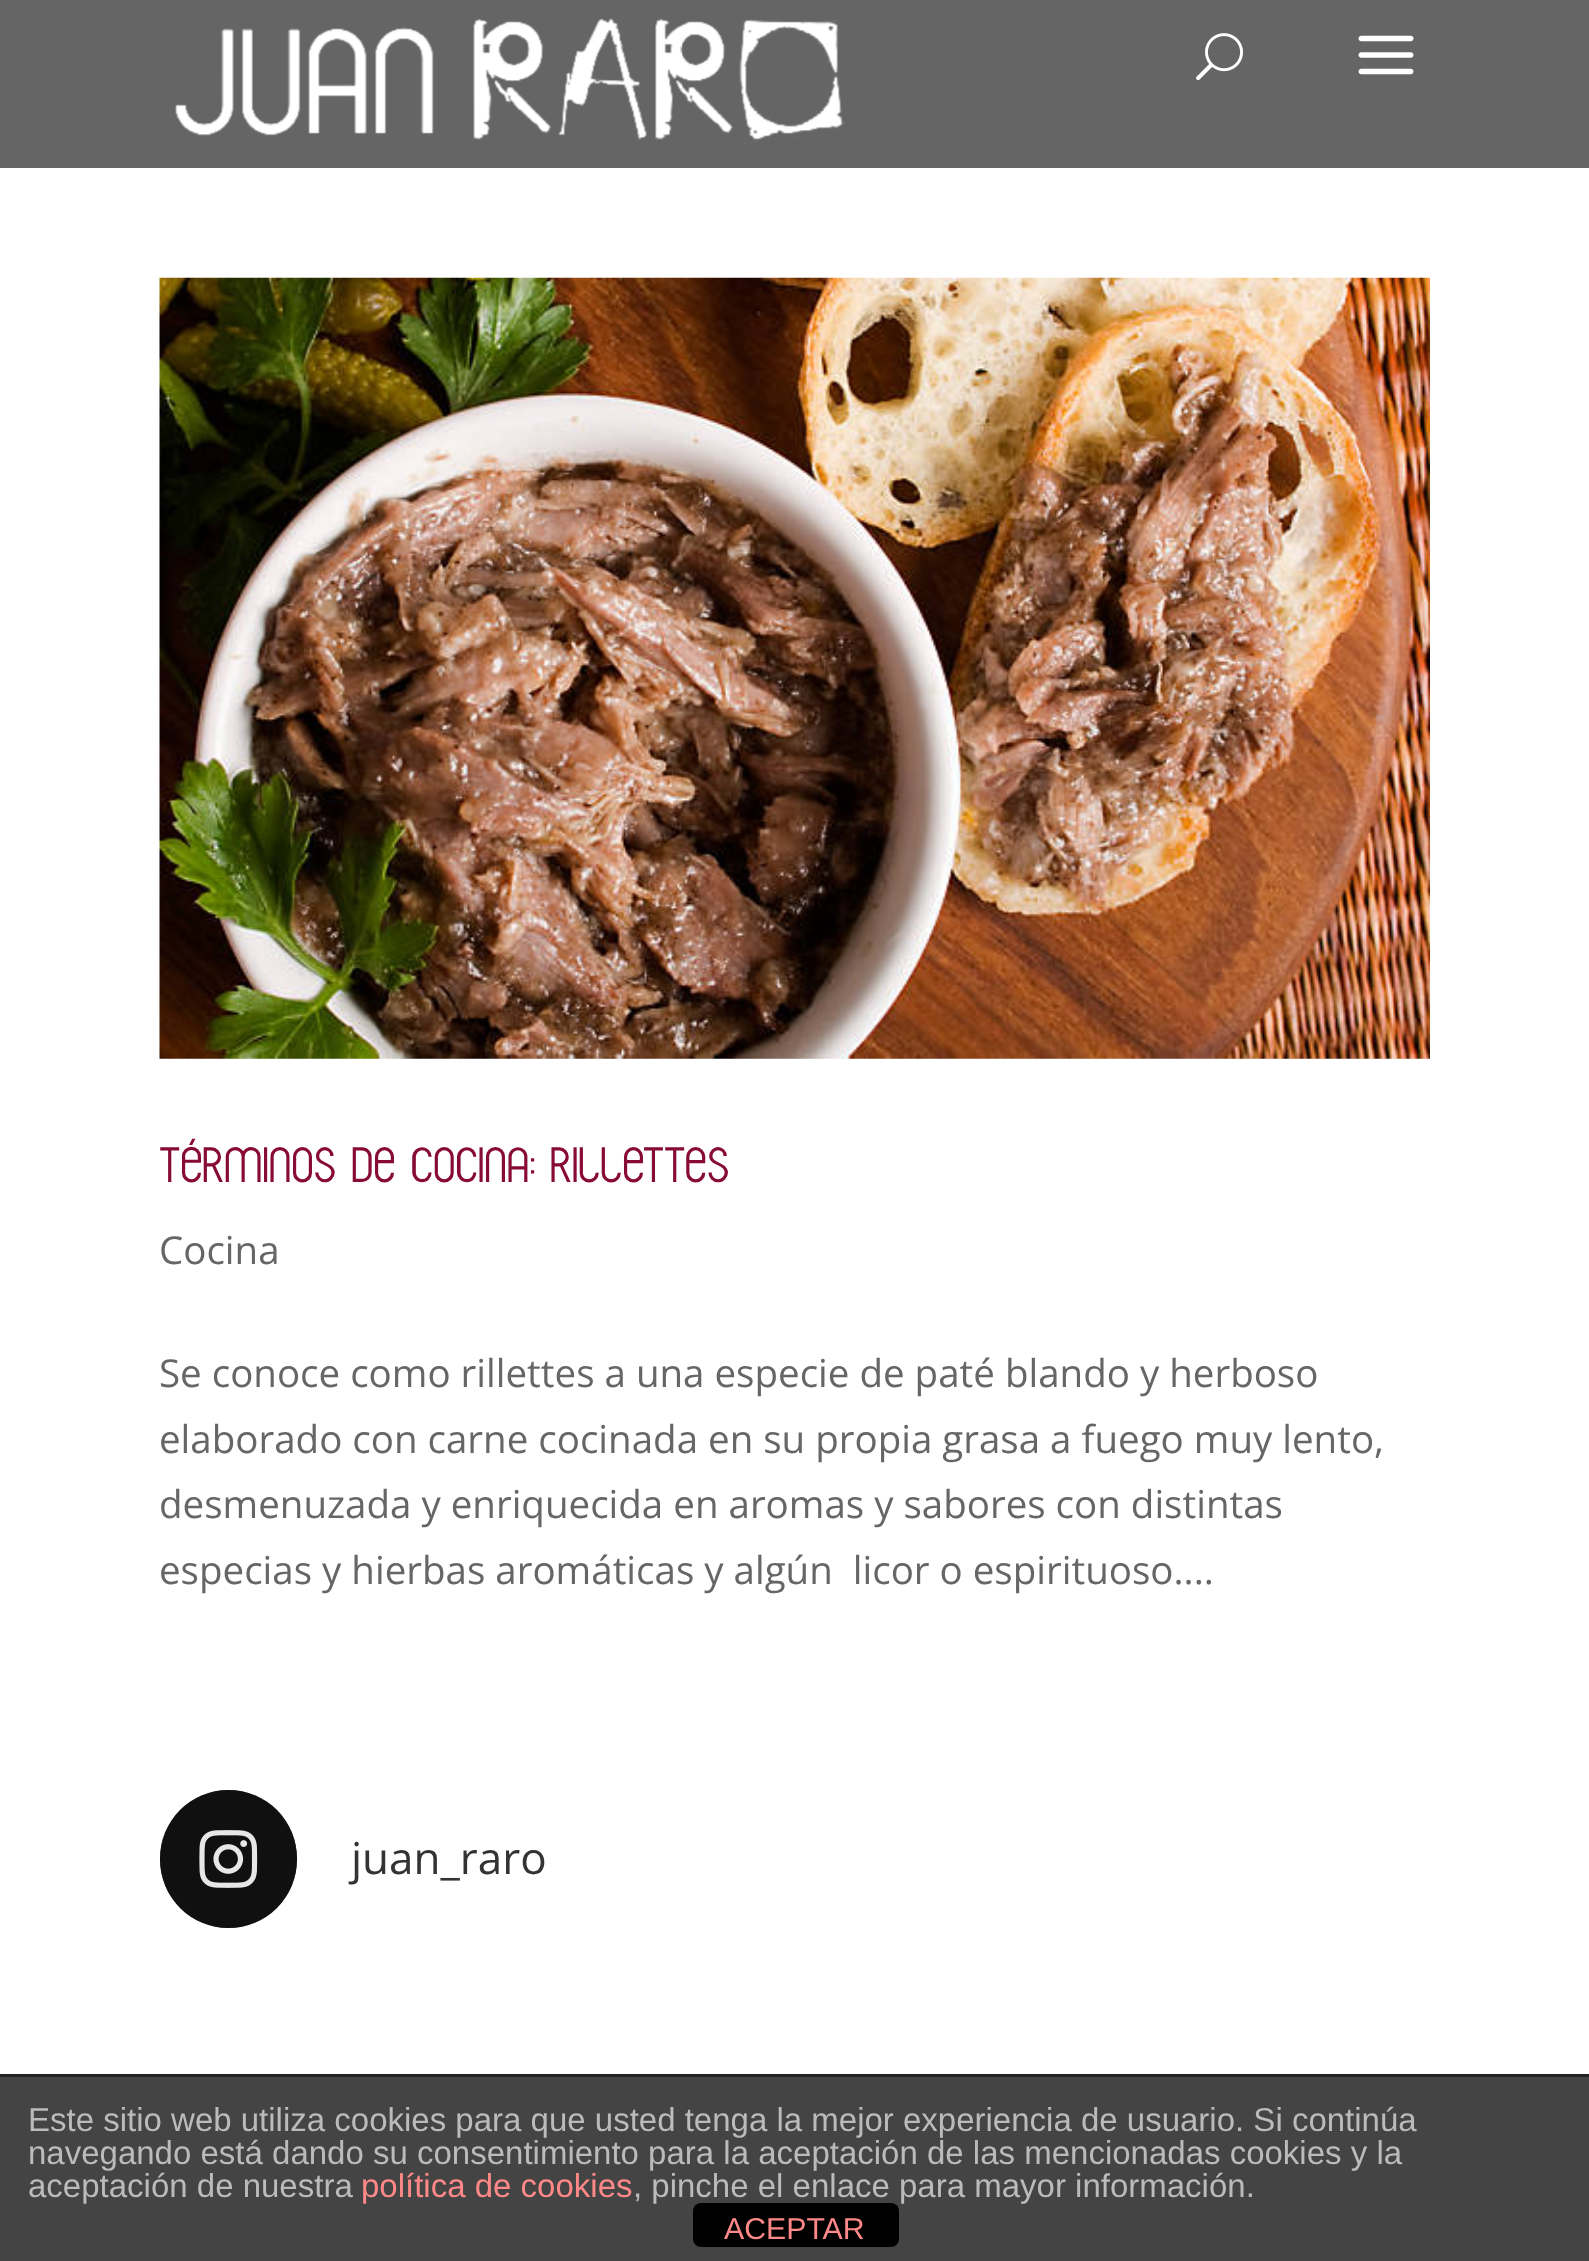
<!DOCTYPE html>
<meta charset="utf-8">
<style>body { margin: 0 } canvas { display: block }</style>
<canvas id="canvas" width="1589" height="2261"></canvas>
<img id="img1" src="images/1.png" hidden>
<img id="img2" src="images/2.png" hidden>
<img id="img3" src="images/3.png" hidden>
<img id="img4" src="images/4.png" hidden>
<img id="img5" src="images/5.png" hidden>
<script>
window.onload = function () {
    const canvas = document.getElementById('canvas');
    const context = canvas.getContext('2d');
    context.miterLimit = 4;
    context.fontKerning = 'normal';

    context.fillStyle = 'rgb(255, 255, 255)';
    context.fillRect(0, 0, 1589, 2261);
    context.fillStyle = 'rgb(101, 101, 101)';
    context.fillRect(0, 0, 1589, 168);
    context.drawImage(document.getElementById('img1'), 175, 18, 670, 126);
    context.drawImage(document.getElementById('img2'), 1196, 33, 47, 48);
    context.drawImage(document.getElementById('img3'), 1358, 35, 56, 40);
    context.drawImage(document.getElementById('img4'), 159, 277, 1271, 782);
    context.fillStyle = 'rgb(51, 51, 51)';
    context.beginPath();
    context.roundRect(160, 1790, 137, 138, 68.5);
    context.fill();
    context.fillStyle = 'rgba(0, 0, 0, 0.68)';
    context.beginPath();
    context.roundRect(160, 1790, 137, 138, 68.5);
    context.fill();
    context.drawImage(document.getElementById('img5'), 199, 1830, 59, 58);
    context.fillStyle = 'rgb(68, 68, 68)';
    context.fillRect(0, 2077, 1589, 184);
    context.fillStyle = 'rgb(34, 34, 34)';
    context.fillRect(0, 2074, 1589, 3);
    context.fillStyle = 'rgb(0, 0, 0)';
    context.beginPath();
    context.roundRect(693, 2203, 206, 44, 8);
    context.fill();
    context.font = '49.5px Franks';
    context.fillStyle = 'rgb(135, 11, 51)';
    context.fillText('TÉRMINOS DE COCINA: RILLETTES', 159, 1182);
    context.font = '38.5px Open Sans';
    context.fillStyle = 'rgb(102, 102, 102)';
    context.fillText('Cocina', 159, 1264);
    context.fillText('Se conoce como rillettes a una especie de paté blando y herboso', 159, 1387);
    context.fillText('elaborado con carne cocinada en su propia grasa a fuego muy lento,', 159, 1453);
    context.fillText('desmenuzada y enriquecida en aromas y sabores con distintas', 159, 1518);
    context.fillText('especias y hierbas aromáticas y algún  licor o espirituoso....', 159, 1584);
    context.font = '44px Open Sans';
    context.fillStyle = 'rgb(51, 51, 51)';
    context.fillText('juan_raro', 351, 1874);
    context.font = '33px Liberation Sans';
    context.fillStyle = 'rgb(187, 187, 187)';
    context.fillText('Este sitio web utiliza cookies para que usted tenga la mejor experiencia de usuario. Si continúa', 28, 2131);
    context.fillText('navegando está dando su consentimiento para la aceptación de las mencionadas cookies y la', 28, 2164);
    context.fillText('aceptación de nuestra', 28, 2197);
    context.fillStyle = 'rgb(255, 136, 136)';
    context.fillText('política de cookies', 361, 2197);
    context.fillStyle = 'rgb(187, 187, 187)';
    context.fillText(', pinche el enlace para mayor información.', 633, 2197);
    context.font = '30.25px Liberation Sans';
    context.fillStyle = 'rgb(255, 136, 136)';
    context.fillText('ACEPTAR', 724, 2239);
};
</script>
